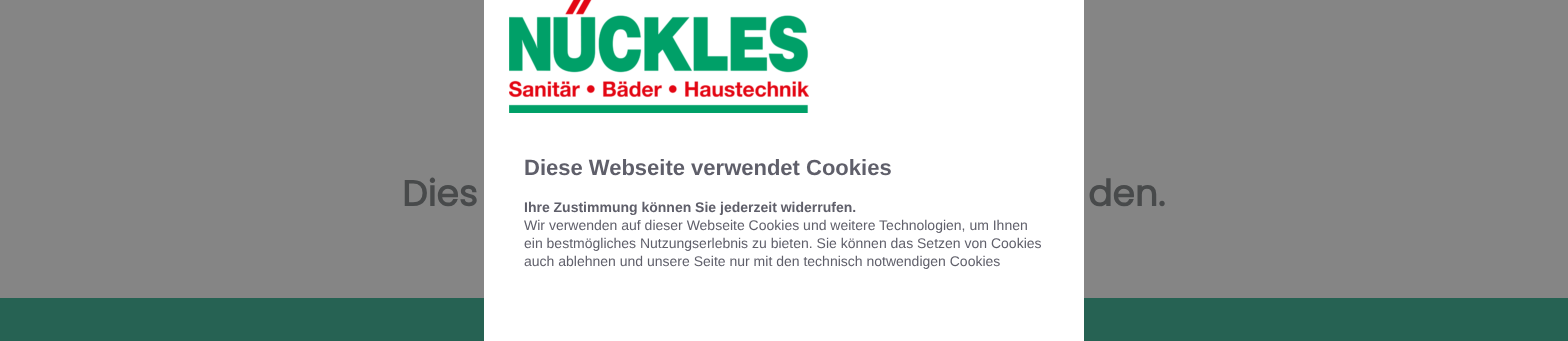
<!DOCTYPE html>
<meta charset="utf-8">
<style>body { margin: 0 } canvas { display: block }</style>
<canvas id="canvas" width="1568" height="341"></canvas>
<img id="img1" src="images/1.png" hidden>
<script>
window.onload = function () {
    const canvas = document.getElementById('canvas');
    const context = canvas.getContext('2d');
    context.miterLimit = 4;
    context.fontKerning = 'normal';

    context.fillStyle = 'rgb(133, 133, 133)';
    context.fillRect(0, 0, 1568, 341);
    context.fillStyle = 'rgb(38, 98, 83)';
    context.fillRect(0, 298, 1568, 43);
    context.fillStyle = 'rgb(255, 255, 255)';
    context.fillRect(484, 0, 600, 341);
    context.drawImage(document.getElementById('img1'), 509, 0, 300, 113);
    context.font = 'bold 22px Liberation Sans';
    context.fillStyle = 'rgb(95, 95, 106)';
    context.fillText('Diese Webseite verwendet Cookies', 524, 175);
    context.font = 'bold 14px Liberation Sans';
    context.fillText('Ihre Zustimmung können Sie jederzeit widerrufen.', 524, 212);
    context.font = '14px Liberation Sans';
    context.fillText('Wir verwenden auf dieser Webseite Cookies und weitere Technologien, um Ihnen', 524, 230);
    context.fillText('ein bestmögliches Nutzungserlebnis zu bieten. Sie können das Setzen von Cookies', 524, 248);
    context.fillText('auch ablehnen und unsere Seite nur mit den technisch notwendigen Cookies', 524, 266);
    context.font = 'bold 36px Poppins';
    context.fillStyle = 'rgb(72, 74, 75)';
    context.fillText('Dies', 402, 206);
    context.fillText('den.', 1088, 206);
};
</script>
